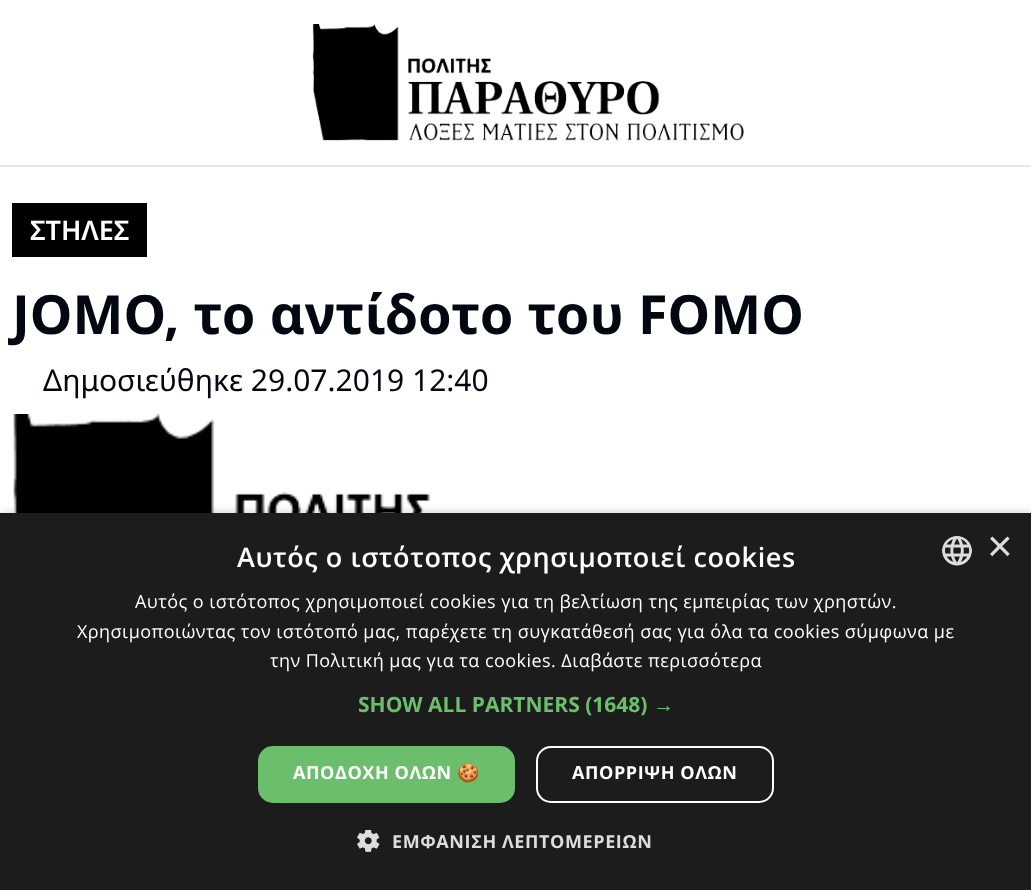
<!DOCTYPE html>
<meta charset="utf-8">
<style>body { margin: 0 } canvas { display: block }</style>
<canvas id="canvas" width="1031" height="890"></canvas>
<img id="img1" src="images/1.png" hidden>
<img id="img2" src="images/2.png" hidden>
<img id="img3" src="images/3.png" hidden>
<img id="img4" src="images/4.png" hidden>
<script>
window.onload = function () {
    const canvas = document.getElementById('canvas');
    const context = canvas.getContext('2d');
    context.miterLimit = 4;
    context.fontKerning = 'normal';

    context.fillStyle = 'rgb(255, 255, 255)';
    context.fillRect(0, 0, 1031, 890);
    context.fillStyle = 'rgb(229, 231, 235)';
    context.fillRect(0, 165, 1031, 2);
    context.drawImage(document.getElementById('img1'), 312, 24, 432, 117);
    context.fillStyle = 'rgb(0, 0, 0)';
    context.fillRect(12, 203, 135, 54);
    context.drawImage(document.getElementById('img2'), 13, 414, 417, 99);
    context.fillStyle = 'rgba(0, 0, 0, 0.35)';
    context.filter = 'blur(6px)';
    context.beginPath();
    context.rect(2, 516, 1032, 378);
    context.fill();
    context.filter = 'none';
    context.fillStyle = 'rgb(28, 28, 28)';
    context.fillRect(0, 513, 1031, 377);
    context.drawImage(document.getElementById('img3'), 942, 536, 30, 30);
    context.fillStyle = 'rgb(107, 190, 107)';
    context.beginPath();
    context.roundRect(258, 746, 257, 57, 15);
    context.fill();
    context.beginPath();
    context.roundRect(537, 747, 236, 55, 14);
    context.strokeStyle = 'rgb(255, 255, 255)';
    context.lineWidth = 2;
    context.stroke();
    context.drawImage(document.getElementById('img4'), 357, 830, 23, 22);
    context.font = '600 27px Noto Sans';
    context.fillStyle = 'rgb(255, 255, 255)';
    context.fillText('ΣΤΗΛΕΣ', 30, 240);
    context.font = 'bold 54px Noto Sans';
    context.fillStyle = 'rgb(3, 7, 18)';
    context.fillText('JOMO, το αντίδοτο του FOMO', 12, 334);
    context.font = '30px Noto Sans';
    context.fillText('Δημοσιεύθηκε 29.07.2019 12:40', 43, 391);
    context.letterSpacing = '0.6px';
    context.font = '600 27px Open Sans';
    context.fillStyle = 'rgb(255, 255, 255)';
    context.fillText('Αυτός ο ιστότοπος χρησιμοποιεί cookies', 237, 567);
    context.letterSpacing = '0px';
    context.font = '44px Liberation Sans';
    context.fillStyle = 'rgb(221, 221, 221)';
    context.fillText('×', 987, 561);
    context.letterSpacing = '0.45px';
    context.font = '18px Open Sans';
    context.fillStyle = 'rgb(255, 255, 255)';
    context.fillText('Αυτός ο ιστότοπος χρησιμοποιεί cookies για τη βελτίωση της εμπειρίας των χρηστών.', 135, 608);
    context.fillText('Χρησιμοποιώντας τον ιστότοπό μας, παρέχετε τη συγκατάθεσή σας για όλα τα cookies σύμφωνα με', 77, 638);
    context.fillText('την Πολιτική μας για τα cookies. Διαβάστε περισσότερα', 270, 667);
    context.letterSpacing = '0px';
    context.font = 'bold 21px Open Sans';
    context.fillStyle = 'rgb(107, 190, 107)';
    context.fillText('SHOW ALL PARTNERS (1648)', 358, 712);
    context.font = 'bold 21px Liberation Sans';
    context.fillText('→', 653, 712);
    context.letterSpacing = '0.6px';
    context.font = 'bold 18px Open Sans';
    context.fillStyle = 'rgb(255, 255, 255)';
    context.fillText('ΑΠΟΔΟΧΗ ΟΛΩΝ', 293, 779);
    context.font = 'bold 18px Noto Color Emoji';
    context.fillText('🍪', 457, 779);
    context.font = 'bold 18px Open Sans';
    context.fillText('ΑΠΟΡΡΙΨΗ ΟΛΩΝ', 572, 779);
    context.fillStyle = 'rgb(221, 221, 221)';
    context.fillText('ΕΜΦΑΝΙΣΗ ΛΕΠΤΟΜΕΡΕΙΩΝ', 392, 848);
};
</script>
